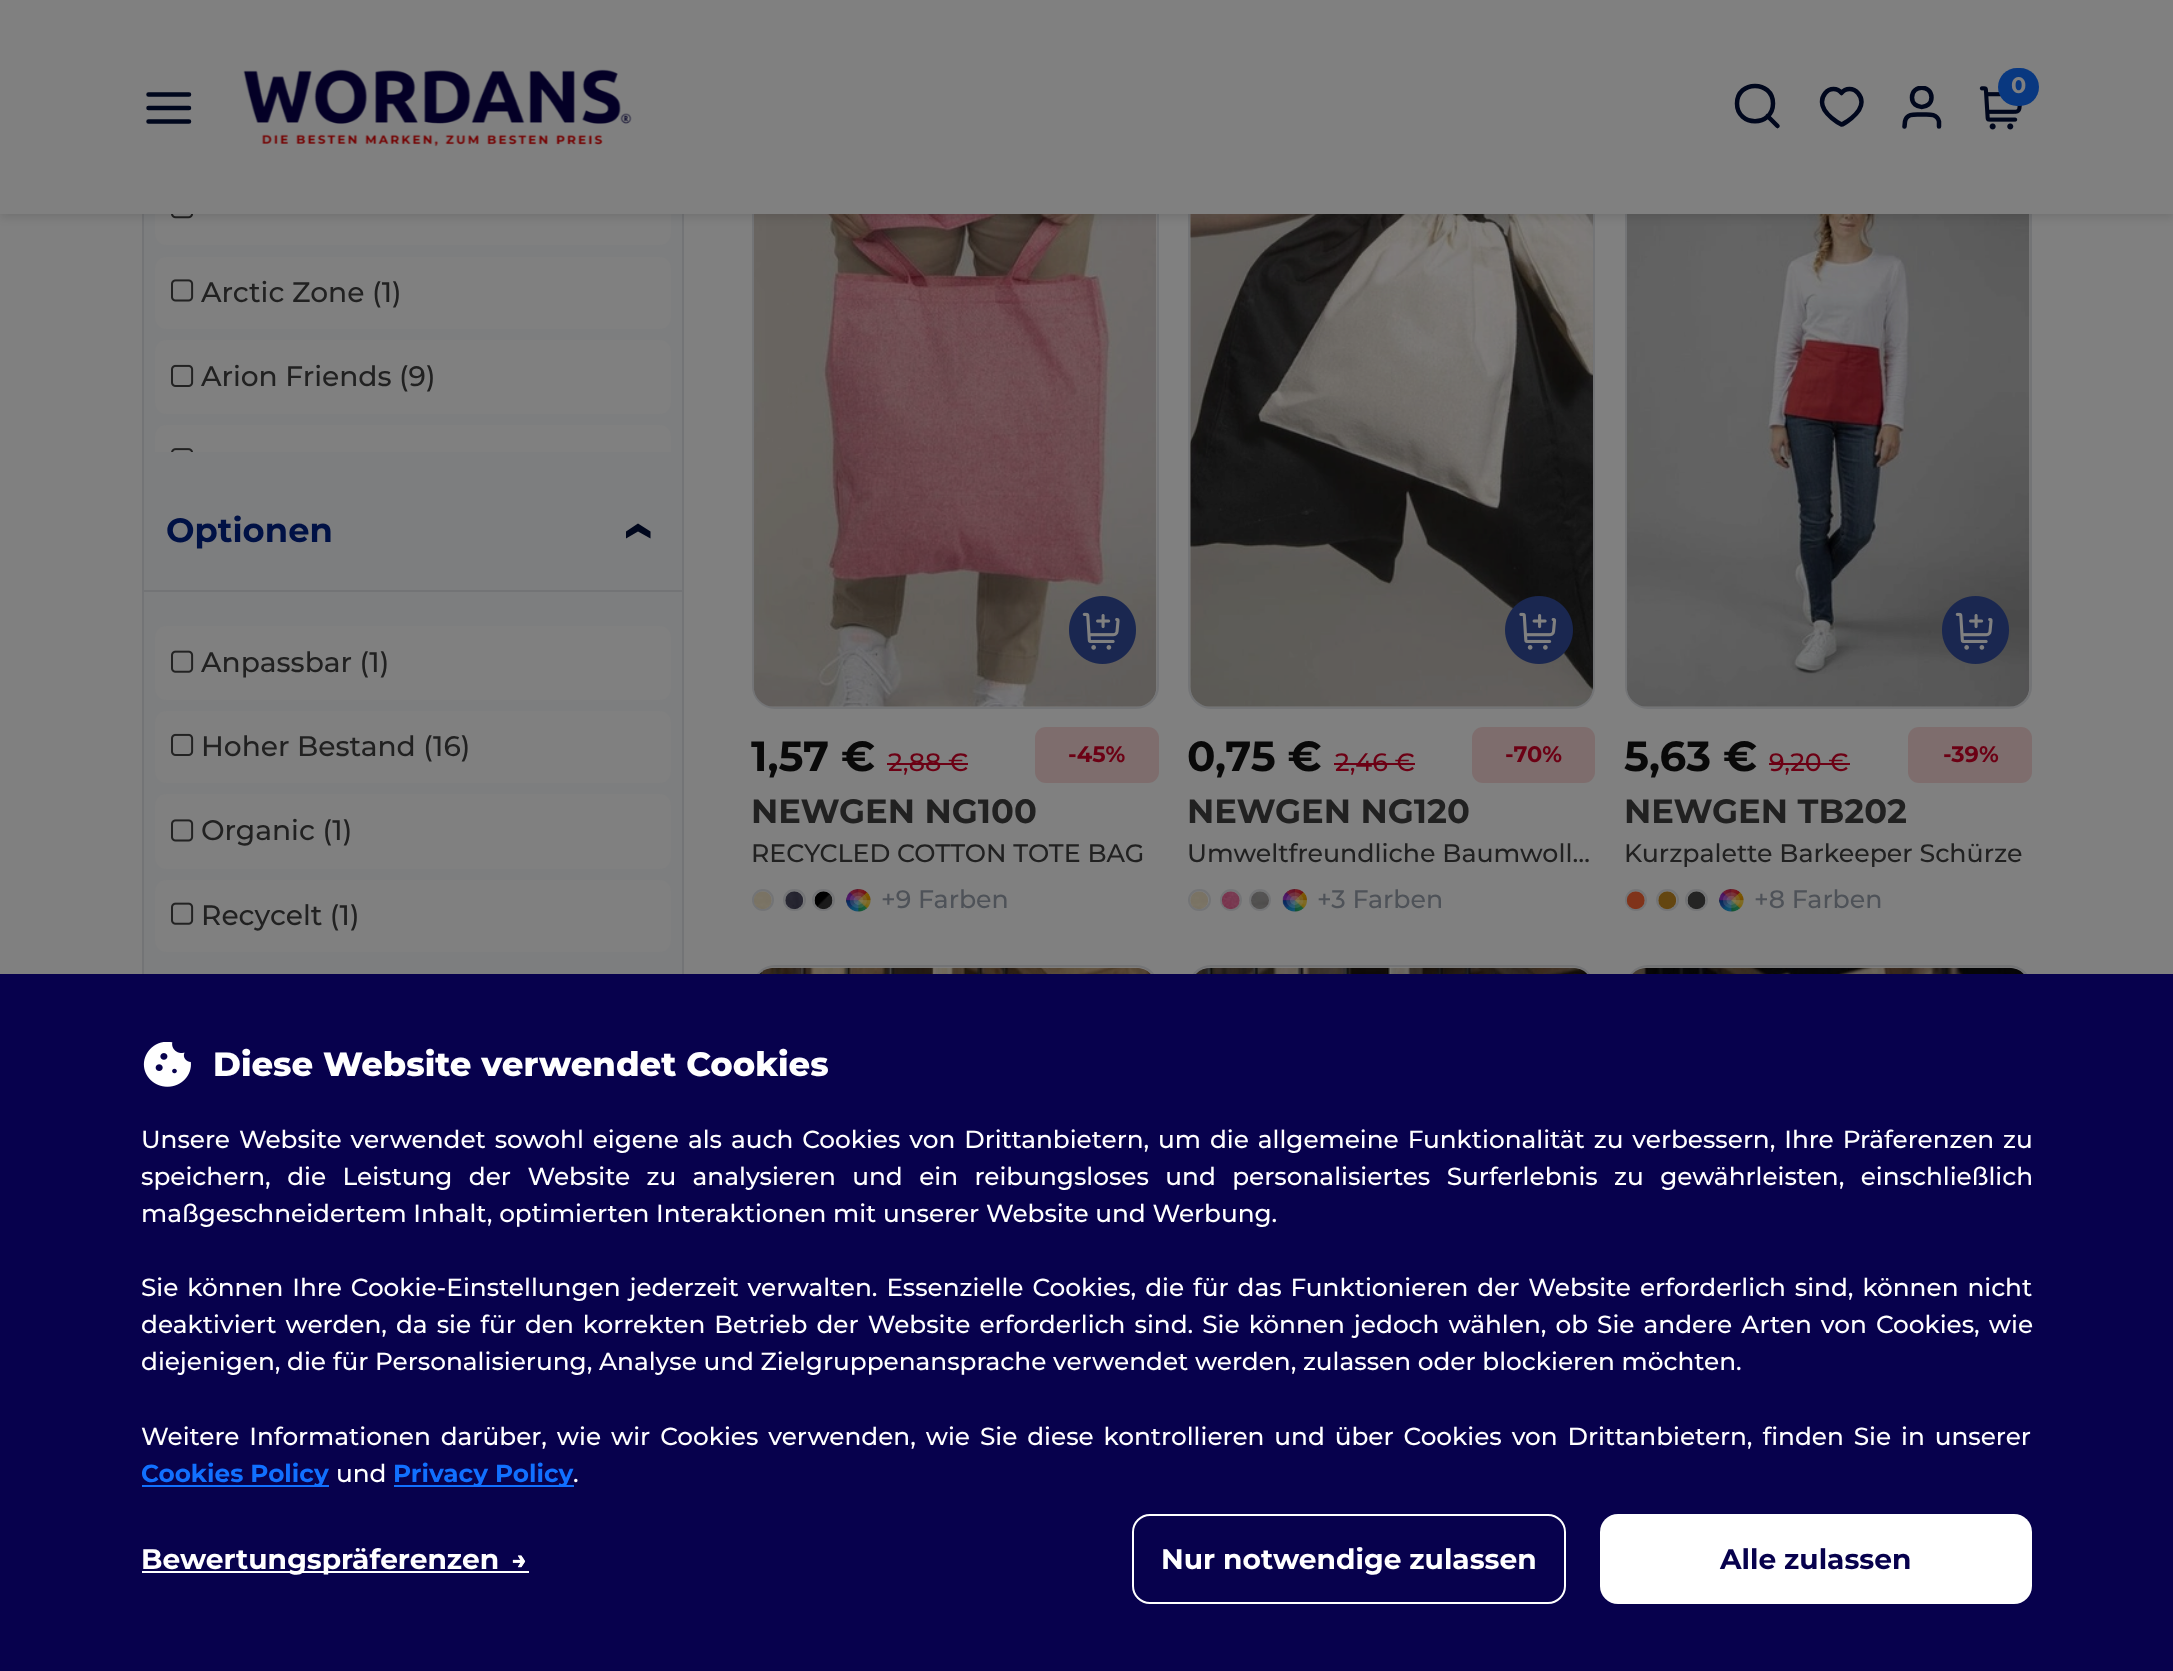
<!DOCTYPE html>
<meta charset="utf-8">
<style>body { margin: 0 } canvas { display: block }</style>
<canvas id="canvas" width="2173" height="1671"></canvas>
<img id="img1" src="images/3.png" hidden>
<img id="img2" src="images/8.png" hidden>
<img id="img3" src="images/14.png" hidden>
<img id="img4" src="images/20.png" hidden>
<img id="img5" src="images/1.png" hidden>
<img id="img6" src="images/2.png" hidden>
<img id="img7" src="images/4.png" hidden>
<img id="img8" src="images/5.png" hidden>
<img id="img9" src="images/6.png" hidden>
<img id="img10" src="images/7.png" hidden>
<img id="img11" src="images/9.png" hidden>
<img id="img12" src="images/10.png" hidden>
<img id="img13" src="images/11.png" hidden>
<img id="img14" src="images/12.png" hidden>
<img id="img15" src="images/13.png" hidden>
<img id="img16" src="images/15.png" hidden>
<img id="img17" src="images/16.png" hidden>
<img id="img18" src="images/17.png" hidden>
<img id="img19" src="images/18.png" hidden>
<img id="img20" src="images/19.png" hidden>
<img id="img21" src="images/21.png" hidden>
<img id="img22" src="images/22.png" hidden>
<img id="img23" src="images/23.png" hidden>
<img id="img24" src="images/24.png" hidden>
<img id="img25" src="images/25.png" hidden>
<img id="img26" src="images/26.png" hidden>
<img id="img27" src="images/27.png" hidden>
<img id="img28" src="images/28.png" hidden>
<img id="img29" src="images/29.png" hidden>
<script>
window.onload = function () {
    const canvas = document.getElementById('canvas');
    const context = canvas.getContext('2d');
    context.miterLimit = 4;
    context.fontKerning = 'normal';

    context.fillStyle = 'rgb(128, 128, 128)';
    context.fillRect(0, 0, 2173, 1671);
    context.fillStyle = 'rgb(125, 126, 127)';
    context.fillRect(144, 214, 538, 760);
    context.strokeStyle = 'rgb(115, 116, 118)';
    context.lineWidth = 2;
    context.strokeRect(143, -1, 540, 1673);
    context.fillStyle = 'rgb(128, 128, 128)';
    context.beginPath();
    context.roundRect(155, 171, 516, 74, 11);
    context.fill();
    context.drawImage(document.getElementById('img1'), 171, 214, 23, 5);
    context.beginPath();
    context.roundRect(753, 98, 405, 610, 22);
    context.stroke();
    context.drawImage(document.getElementById('img2'), 754, 214, 403, 493);
    context.beginPath();
    context.roundRect(1189, 98, 405, 610, 22);
    context.stroke();
    context.drawImage(document.getElementById('img3'), 1190, 214, 403, 493);
    context.beginPath();
    context.roundRect(1626, 98, 405, 610, 22);
    context.stroke();
    context.drawImage(document.getElementById('img4'), 1627, 214, 403, 493);
    context.fillStyle = 'rgba(0, 0, 0, 0.1)';
    context.filter = 'blur(4.5px)';
    context.beginPath();
    context.rect(0, 5, 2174, 213);
    context.fill();
    context.filter = 'none';
    context.fillStyle = 'rgb(128, 128, 128)';
    context.fillRect(0, 0, 2173, 214);
    context.beginPath();
    context.moveTo(148.5, 108);
    context.lineTo(189, 108);
    context.moveTo(148.5, 94.5);
    context.lineTo(189, 94.5);
    context.moveTo(148.5, 121.5);
    context.lineTo(189, 121.5);
    context.strokeStyle = 'rgb(0, 7, 29)';
    context.lineWidth = 4.5;
    context.lineCap = 'round';
    context.lineJoin = 'round';
    context.stroke();
    context.drawImage(document.getElementById('img5'), 243, 69, 389, 78);
    context.beginPath();
    context.moveTo(1777.5, 126);
    context.lineTo(1767.5, 116);
    context.moveTo(1773, 103.5);
    context.bezierCurveTo(1773, 127, 1737, 127, 1737, 103.5);
    context.bezierCurveTo(1737, 80, 1773, 80, 1773, 103.5);
    context.closePath();
    context.stroke();
    context.beginPath();
    context.moveTo(1849.5, 89);
    context.bezierCurveTo(1856.5, 89, 1861.5, 96, 1861.5, 102);
    context.bezierCurveTo(1861.5, 114.5, 1842, 124.5, 1841.5, 124.5);
    context.bezierCurveTo(1841.5, 124.5, 1822, 114.5, 1822, 102);
    context.bezierCurveTo(1822, 96, 1826.5, 89, 1833.5, 89);
    context.bezierCurveTo(1837.5, 89, 1840, 91, 1841.5, 93);
    context.bezierCurveTo(1843, 91, 1845.5, 89, 1849.5, 89);
    context.closePath();
    context.stroke();
    context.save();
    context.beginPath();
    context.rect(1901, 86, 41, 45);
    context.clip();
    context.beginPath();
    context.moveTo(1939, 126.5);
    context.lineTo(1939, 121.5);
    context.bezierCurveTo(1937, 113, 1928, 114.5, 1922, 114.5);
    context.bezierCurveTo(1915.5, 114.5, 1906.5, 113, 1905, 121.5);
    context.lineTo(1904.5, 126.5);
    context.moveTo(1931.5, 97.5);
    context.bezierCurveTo(1931.5, 110, 1912, 110, 1912, 97.5);
    context.bezierCurveTo(1912, 84.5, 1931.5, 84.5, 1931.5, 97.5);
    context.closePath();
    context.stroke();
    context.restore();
    context.drawImage(document.getElementById('img6'), 1979, 86, 44, 44);
    context.fillStyle = 'rgb(9, 56, 128)';
    context.beginPath();
    context.roundRect(1998, 68, 41, 38, 19);
    context.fill();
    context.fillStyle = 'rgb(128, 128, 128)';
    context.beginPath();
    context.roundRect(155, 257, 516, 72, 11);
    context.fill();
    context.drawImage(document.getElementById('img7'), 171, 279, 23, 23);
    context.beginPath();
    context.roundRect(155, 340, 516, 74, 11);
    context.fill();
    context.drawImage(document.getElementById('img8'), 171, 364, 23, 23);
    context.beginPath();
    context.roundRect(155, 425, 516, 27, [11, 11, 0, 0]);
    context.fill();
    context.drawImage(document.getElementById('img9'), 171, 448, 22, 4);
    context.fillStyle = 'rgb(0, 7, 29)';
    context.beginPath();
    context.moveTo(650.5, 538.5);
    context.lineTo(650.5, 531.5);
    context.lineTo(638, 523.5);
    context.lineTo(626, 531.5);
    context.lineTo(626, 538.5);
    context.lineTo(638, 531.5);
    context.closePath();
    context.fill('evenodd');
    context.fillStyle = 'rgb(115, 116, 118)';
    context.fillRect(144, 590, 538, 2);
    context.fillStyle = 'rgb(128, 128, 128)';
    context.beginPath();
    context.roundRect(155, 626, 516, 74, 11);
    context.fill();
    context.drawImage(document.getElementById('img10'), 171, 650, 23, 23);
    context.beginPath();
    context.roundRect(155, 711, 516, 72, 11);
    context.fill();
    context.drawImage(document.getElementById('img8'), 171, 733, 23, 23);
    context.beginPath();
    context.roundRect(155, 794, 516, 75, 11);
    context.fill();
    context.drawImage(document.getElementById('img7'), 171, 819, 23, 23);
    context.beginPath();
    context.roundRect(155, 880, 516, 72, 11);
    context.fill();
    context.drawImage(document.getElementById('img10'), 171, 902, 23, 23);
    context.drawImage(document.getElementById('img11'), 1069, 596, 67, 68);
    context.fillStyle = 'rgb(108, 0, 20)';
    context.fillRect(887, 763, 81, 2);
    context.fillStyle = 'rgb(126, 109, 109)';
    context.beginPath();
    context.roundRect(1035, 727, 124, 56, 11);
    context.fill();
    context.beginPath();
    context.arc(763, 900, 10, 0, 2 * Math.PI);
    context.strokeStyle = 'rgb(115, 116, 118)';
    context.lineWidth = 2;
    context.stroke();
    context.beginPath();
    context.roundRect(784, 890, 21, 20, 10);
    context.lineJoin = 'miter';
    context.stroke();
    context.beginPath();
    context.roundRect(813, 890, 21, 20, 10);
    context.stroke();
    context.drawImage(document.getElementById('img12'), 846, 889, 25, 23);
    context.drawImage(document.getElementById('img13'), 754, 891, 18, 18);
    context.drawImage(document.getElementById('img14'), 785, 891, 19, 19);
    context.drawImage(document.getElementById('img15'), 814, 891, 19, 19);
    context.drawImage(document.getElementById('img16'), 1505, 596, 68, 68);
    context.fillStyle = 'rgb(108, 0, 20)';
    context.fillRect(1334, 763, 81, 2);
    context.fillStyle = 'rgb(126, 109, 109)';
    context.beginPath();
    context.roundRect(1472, 727, 123, 56, 11);
    context.fill();
    context.beginPath();
    context.roundRect(1189, 890, 21, 20, 10);
    context.stroke();
    context.beginPath();
    context.arc(1231, 900, 10, 0, 2 * Math.PI);
    context.stroke();
    context.beginPath();
    context.arc(1260, 900, 10, 0, 2 * Math.PI);
    context.stroke();
    context.drawImage(document.getElementById('img17'), 1282, 889, 25, 23);
    context.drawImage(document.getElementById('img18'), 1190, 891, 18, 18);
    context.drawImage(document.getElementById('img19'), 1221, 891, 19, 19);
    context.drawImage(document.getElementById('img20'), 1251, 891, 18, 18);
    context.drawImage(document.getElementById('img21'), 1942, 596, 67, 68);
    context.fillStyle = 'rgb(108, 0, 20)';
    context.fillRect(1769, 763, 81, 2);
    context.fillStyle = 'rgb(126, 109, 109)';
    context.beginPath();
    context.roundRect(1908, 727, 124, 56, 11);
    context.fill();
    context.beginPath();
    context.arc(1636, 900, 10, 0, 2 * Math.PI);
    context.stroke();
    context.beginPath();
    context.roundRect(1657, 890, 21, 20, 10);
    context.stroke();
    context.beginPath();
    context.roundRect(1686, 890, 21, 20, 10);
    context.stroke();
    context.drawImage(document.getElementById('img12'), 1719, 889, 25, 23);
    context.drawImage(document.getElementById('img22'), 1626, 891, 19, 19);
    context.drawImage(document.getElementById('img23'), 1658, 891, 19, 19);
    context.drawImage(document.getElementById('img24'), 1687, 891, 19, 19);
    context.beginPath();
    context.roundRect(753, 966, 405, 613, 22);
    context.stroke();
    context.drawImage(document.getElementById('img25'), 759, 967, 392, 7);
    context.beginPath();
    context.roundRect(1189, 966, 405, 613, 22);
    context.stroke();
    context.drawImage(document.getElementById('img26'), 1196, 967, 392, 7);
    context.beginPath();
    context.roundRect(1626, 966, 405, 613, 22);
    context.stroke();
    context.drawImage(document.getElementById('img27'), 1632, 967, 392, 7);
    context.fillStyle = 'rgb(7, 1, 77)';
    context.fillRect(0, 974, 2173, 697);
    context.drawImage(document.getElementById('img28'), 143, 1042, 48, 45);
    context.fillStyle = 'rgb(17, 112, 255)';
    context.fillRect(142, 1485, 187, 2);
    context.fillRect(394, 1485, 180, 2);
    context.drawImage(document.getElementById('img29'), 512, 1555, 14, 13);
    context.fillStyle = 'rgb(255, 255, 255)';
    context.fillRect(142, 1571, 387, 2);
    context.beginPath();
    context.roundRect(1133, 1515, 432, 88, 17);
    context.strokeStyle = 'rgb(255, 255, 255)';
    context.stroke();
    context.beginPath();
    context.roundRect(1600, 1514, 432, 90, 18);
    context.fill();
    context.font = 'bold 22.5px Montserrat';
    context.fillStyle = 'rgb(128, 128, 128)';
    context.fillText('0', 2011, 93);
    context.font = '500 28.1px Montserrat';
    context.fillStyle = 'rgb(33, 33, 33)';
    context.fillText('Arctic Zone (1)', 201, 302);
    context.fillText('Arion Friends (9)', 201, 386);
    context.font = 'bold 33.75px Montserrat';
    context.fillStyle = 'rgb(0, 17, 69)';
    context.fillText('Optionen', 166, 542);
    context.font = '500 28.1px Montserrat';
    context.fillStyle = 'rgb(33, 33, 33)';
    context.fillText('Anpassbar (1)', 201, 672);
    context.fillText('Hoher Bestand (16)', 201, 756);
    context.fillText('Organic (1)', 201, 840);
    context.fillText('Recycelt (1)', 201, 925);
    context.font = 'bold 42px Montserrat';
    context.fillStyle = 'rgb(9, 9, 9)';
    context.fillText('1,57 €', 751, 771);
    context.font = '500 25.25px Montserrat';
    context.fillStyle = 'rgb(108, 0, 20)';
    context.fillText('2,88 €', 888, 771);
    context.font = 'bold 22.5px Montserrat';
    context.fillText('-45%', 1068, 762);
    context.font = 'bold 33.75px Montserrat';
    context.fillStyle = 'rgb(33, 33, 33)';
    context.fillText('NEWGEN NG100', 751, 823);
    context.font = '500 25.25px Montserrat';
    context.fillText('RECYCLED COTTON TOTE BAG', 751, 862);
    context.fillStyle = 'rgb(78, 82, 88)';
    context.fillText('+9 Farben', 881, 908);
    context.font = 'bold 42px Montserrat';
    context.fillStyle = 'rgb(9, 9, 9)';
    context.fillText('0,75 €', 1187, 771);
    context.font = '500 25.25px Montserrat';
    context.fillStyle = 'rgb(108, 0, 20)';
    context.fillText('2,46 €', 1335, 771);
    context.font = 'bold 22.5px Montserrat';
    context.fillText('-70%', 1505, 762);
    context.font = 'bold 33.75px Montserrat';
    context.fillStyle = 'rgb(33, 33, 33)';
    context.fillText('NEWGEN NG120', 1187, 823);
    context.font = '500 25.25px Montserrat';
    context.fillText('Umweltfreundliche Baumwoll…', 1187, 862);
    context.fillStyle = 'rgb(78, 82, 88)';
    context.fillText('+3 Farben', 1317, 908);
    context.font = 'bold 42px Montserrat';
    context.fillStyle = 'rgb(9, 9, 9)';
    context.fillText('5,63 €', 1624, 771);
    context.font = '500 25.25px Montserrat';
    context.fillStyle = 'rgb(108, 0, 20)';
    context.fillText('9,20 €', 1769, 771);
    context.font = 'bold 22.5px Montserrat';
    context.fillText('-39%', 1943, 762);
    context.font = 'bold 33.75px Montserrat';
    context.fillStyle = 'rgb(33, 33, 33)';
    context.fillText('NEWGEN TB202', 1624, 823);
    context.font = '500 25.25px Montserrat';
    context.fillText('Kurzpalette Barkeeper Schürze', 1624, 862);
    context.fillStyle = 'rgb(78, 82, 88)';
    context.fillText('+8 Farben', 1754, 908);
    context.font = '800 33.75px Montserrat';
    context.fillStyle = 'rgb(255, 255, 255)';
    context.fillText('Diese Website verwendet Cookies', 213, 1076);
    context.wordSpacing = '2.25px';
    context.font = '500 24.75px Montserrat';
    context.fillText('Unsere Website verwendet sowohl eigene als auch Cookies von Drittanbietern, um die allgemeine Funktionalität zu verbessern, Ihre Präferenzen zu', 141, 1148);
    context.wordSpacing = '9.75px';
    context.fillText('speichern, die Leistung der Website zu analysieren und ein reibungsloses und personalisiertes Surferlebnis zu gewährleisten, einschließlich', 141, 1185);
    context.wordSpacing = '0px';
    context.fillText('maßgeschneidertem Inhalt, optimierten Interaktionen mit unserer Website und Werbung.', 141, 1222);
    context.wordSpacing = '2.25px';
    context.fillText('Sie können Ihre Cookie-Einstellungen jederzeit verwalten. Essenzielle Cookies, die für das Funktionieren der Website erforderlich sind, können nicht', 141, 1296);
    context.wordSpacing = '2.4px';
    context.fillText('deaktiviert werden, da sie für den korrekten Betrieb der Website erforderlich sind. Sie können jedoch wählen, ob Sie andere Arten von Cookies, wie', 141, 1333);
    context.wordSpacing = '0px';
    context.fillText('diejenigen, die für Personalisierung, Analyse und Zielgruppenansprache verwendet werden, zulassen oder blockieren möchten.', 141, 1370);
    context.wordSpacing = '3.25px';
    context.fillText('Weitere Informationen darüber, wie wir Cookies verwenden, wie Sie diese kontrollieren und über Cookies von Drittanbietern, finden Sie in unserer', 141, 1445);
    context.wordSpacing = '0px';
    context.font = 'bold 24.75px Montserrat';
    context.fillStyle = 'rgb(17, 112, 255)';
    context.fillText('Cookies Policy', 141, 1482);
    context.font = '500 24.75px Montserrat';
    context.fillStyle = 'rgb(255, 255, 255)';
    context.fillText('und', 336, 1482);
    context.font = 'bold 24.75px Montserrat';
    context.fillStyle = 'rgb(17, 112, 255)';
    context.fillText('Privacy Policy', 393, 1482);
    context.font = '500 24.75px Montserrat';
    context.fillStyle = 'rgb(255, 255, 255)';
    context.fillText('.', 573, 1482);
    context.font = 'bold 28.1px Montserrat';
    context.fillText('Bewertungspräferenzen', 141, 1569);
    context.fillText('Nur notwendige zulassen', 1161, 1569);
    context.fillStyle = 'rgb(7, 1, 77)';
    context.fillText('Alle zulassen', 1720, 1569);
};
</script>
